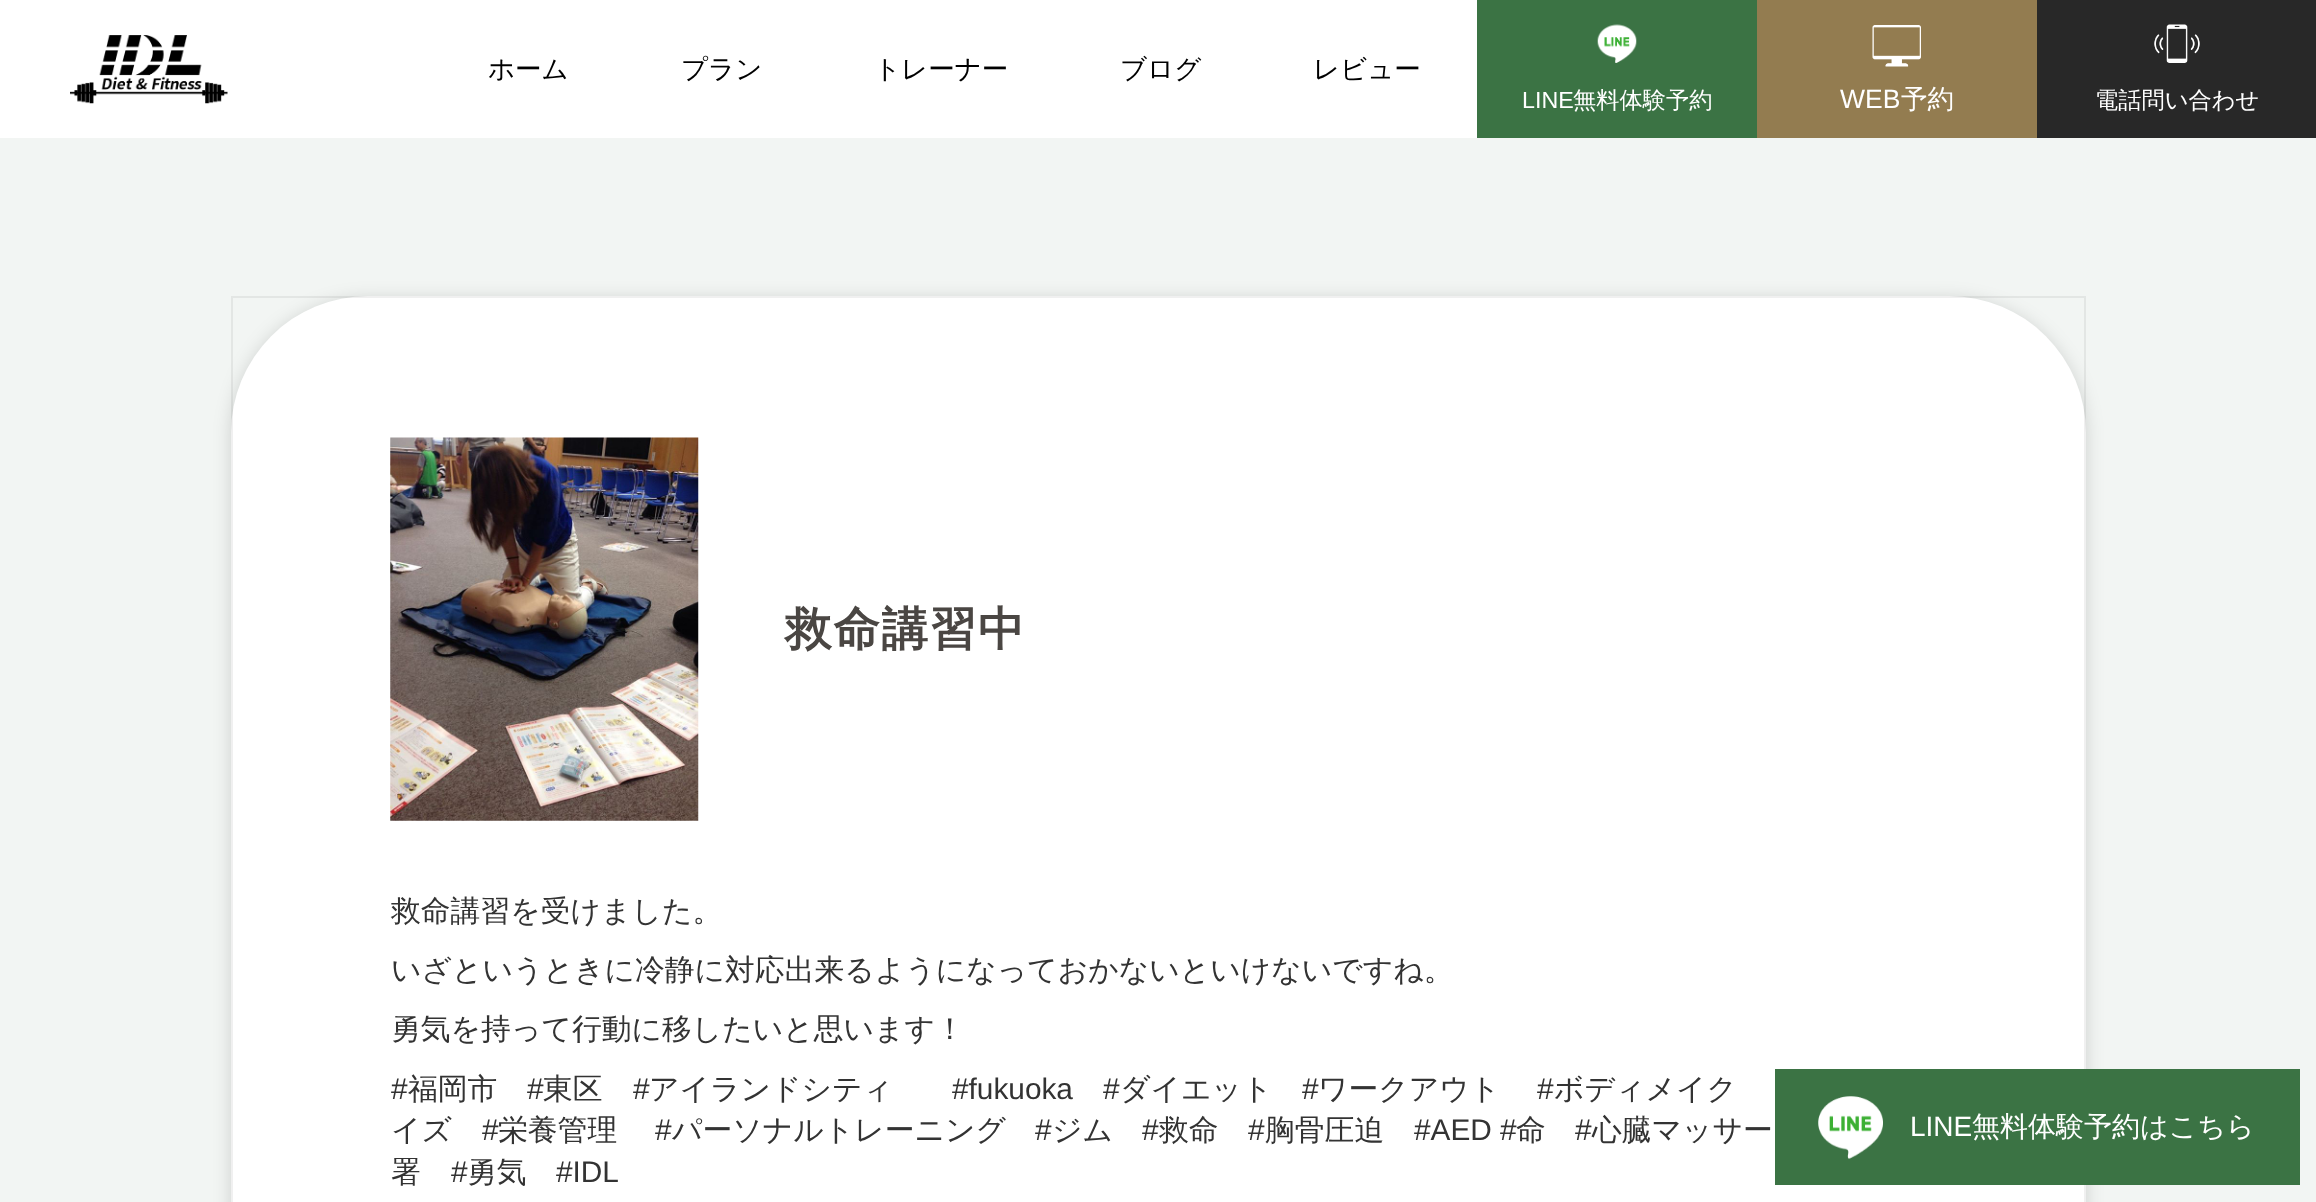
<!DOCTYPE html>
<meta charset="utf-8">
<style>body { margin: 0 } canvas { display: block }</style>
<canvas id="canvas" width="2316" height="1202"></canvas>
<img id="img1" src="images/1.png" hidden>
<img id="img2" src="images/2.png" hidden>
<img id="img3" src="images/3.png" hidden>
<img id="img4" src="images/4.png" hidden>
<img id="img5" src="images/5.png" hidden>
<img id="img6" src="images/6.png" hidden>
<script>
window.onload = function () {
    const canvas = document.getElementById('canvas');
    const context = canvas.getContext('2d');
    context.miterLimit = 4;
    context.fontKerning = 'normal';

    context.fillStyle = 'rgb(242, 245, 243)';
    context.fillRect(0, 0, 2316, 1202);
    context.fillStyle = 'rgb(255, 255, 255)';
    context.fillRect(0, 0, 1477, 138);
    context.drawImage(document.getElementById('img1'), 70, 35, 158, 69);
    context.fillStyle = 'rgb(59, 115, 68)';
    context.fillRect(1477, 0, 280, 138);
    context.drawImage(document.getElementById('img2'), 1597, 24, 40, 39);
    context.fillStyle = 'rgb(147, 124, 80)';
    context.fillRect(1757, 0, 280, 138);
    context.drawImage(document.getElementById('img3'), 1872, 25, 49, 42);
    context.fillStyle = 'rgb(40, 40, 40)';
    context.fillRect(2037, 0, 279, 138);
    context.drawImage(document.getElementById('img4'), 2154, 24, 46, 39);
    context.fillStyle = 'rgba(0, 0, 0, 0.15)';
    context.filter = 'blur(9px)';
    context.beginPath();
    context.roundRect(231, 299, 1855, 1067, 137);
    context.fill();
    context.filter = 'none';
    context.fillStyle = 'rgb(255, 255, 255)';
    context.beginPath();
    context.roundRect(231, 296, 1855, 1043, 137);
    context.fill();
    context.strokeStyle = 'rgba(0, 0, 0, 0.06)';
    context.lineWidth = 2;
    context.strokeRect(232, 297, 1853, 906);
    context.drawImage(document.getElementById('img5'), 390, 437, 309, 384);
    context.fillStyle = 'rgb(59, 115, 68)';
    context.fillRect(1775, 1069, 525, 116);
    context.drawImage(document.getElementById('img6'), 1818, 1096, 65, 63);
    context.font = '500 26.5px WenQuanYi Zen Hei';
    context.fillStyle = 'rgb(0, 0, 0)';
    context.fillText('ホーム', 488, 78);
    context.fillText('プラン', 681, 78);
    context.fillText('トレーナー', 874, 78);
    context.fillText('ブログ', 1120, 78);
    context.fillText('レビュー', 1313, 78);
    context.font = '23.25px Liberation Sans';
    context.fillStyle = 'rgb(255, 255, 255)';
    context.fillText('LINE', 1522, 108);
    context.font = '500 23.25px WenQuanYi Zen Hei';
    context.fillText('無料体験予約', 1573, 108);
    context.font = '26.5px Liberation Sans';
    context.fillText('WEB', 1840, 108);
    context.font = '500 26.5px WenQuanYi Zen Hei';
    context.fillText('予約', 1901, 108);
    context.font = '500 23.25px WenQuanYi Zen Hei';
    context.fillText('電話問い合わせ', 2095, 108);
    context.letterSpacing = '1.75px';
    context.font = 'bold 46.5px WenQuanYi Zen Hei';
    context.fillStyle = 'rgb(74, 70, 67)';
    context.fillText('救命講習中', 785, 645);
    context.letterSpacing = '0px';
    context.font = '500 29.8px WenQuanYi Zen Hei';
    context.fillStyle = 'rgb(51, 51, 51)';
    context.fillText('救命講習を受けました。', 391, 921);
    context.fillText('いざというときに冷静に対応出来るようになっておかないといけないですね。', 391, 980);
    context.fillText('勇気を持って行動に移したいと思います！', 391, 1039);
    context.font = '29.8px Liberation Sans';
    context.fillText('#', 391, 1099);
    context.font = '500 29.8px WenQuanYi Zen Hei';
    context.fillText('福岡市', 408, 1099);
    context.font = '29.8px Liberation Sans';
    context.fillText('#', 527, 1099);
    context.font = '500 29.8px WenQuanYi Zen Hei';
    context.fillText('東区', 543, 1099);
    context.font = '29.8px Liberation Sans';
    context.fillText('#', 633, 1099);
    context.font = '500 29.8px WenQuanYi Zen Hei';
    context.fillText('アイランドシティ', 649, 1099);
    context.font = '29.8px Liberation Sans';
    context.fillText('#fukuoka', 952, 1099);
    context.fillText('#', 1103, 1099);
    context.font = '500 29.8px WenQuanYi Zen Hei';
    context.fillText('ダイエット', 1120, 1099);
    context.font = '29.8px Liberation Sans';
    context.fillText('#', 1302, 1099);
    context.font = '500 29.8px WenQuanYi Zen Hei';
    context.fillText('ワークアウト', 1318, 1099);
    context.font = '29.8px Liberation Sans';
    context.fillText('#', 1537, 1099);
    context.font = '500 29.8px WenQuanYi Zen Hei';
    context.fillText('ボディメイク', 1554, 1099);
    context.fillText('イズ', 391, 1140);
    context.font = '29.8px Liberation Sans';
    context.fillText('#', 482, 1140);
    context.font = '500 29.8px WenQuanYi Zen Hei';
    context.fillText('栄養管理', 498, 1140);
    context.font = '29.8px Liberation Sans';
    context.fillText('#', 655, 1140);
    context.font = '500 29.8px WenQuanYi Zen Hei';
    context.fillText('パーソナルトレーニング', 672, 1140);
    context.font = '29.8px Liberation Sans';
    context.fillText('#', 1035, 1140);
    context.font = '500 29.8px WenQuanYi Zen Hei';
    context.fillText('ジム', 1052, 1140);
    context.font = '29.8px Liberation Sans';
    context.fillText('#', 1142, 1140);
    context.font = '500 29.8px WenQuanYi Zen Hei';
    context.fillText('救命', 1159, 1140);
    context.font = '29.8px Liberation Sans';
    context.fillText('#', 1248, 1140);
    context.font = '500 29.8px WenQuanYi Zen Hei';
    context.fillText('胸骨圧迫', 1265, 1140);
    context.font = '29.8px Liberation Sans';
    context.fillText('#AED #', 1414, 1140);
    context.font = '500 29.8px WenQuanYi Zen Hei';
    context.fillText('命', 1516, 1140);
    context.font = '29.8px Liberation Sans';
    context.fillText('#', 1575, 1140);
    context.font = '500 29.8px WenQuanYi Zen Hei';
    context.fillText('心臓マッサー', 1592, 1140);
    context.fillText('署', 391, 1182);
    context.font = '29.8px Liberation Sans';
    context.fillText('#', 451, 1182);
    context.font = '500 29.8px WenQuanYi Zen Hei';
    context.fillText('勇気', 467, 1182);
    context.font = '29.8px Liberation Sans';
    context.fillText('#IDL', 556, 1182);
    context.font = '28px Liberation Sans';
    context.fillStyle = 'rgb(255, 255, 255)';
    context.fillText('LINE', 1910, 1136);
    context.font = '500 28px WenQuanYi Zen Hei';
    context.fillText('無料体験予約はこちら', 1972, 1136);
};
</script>
